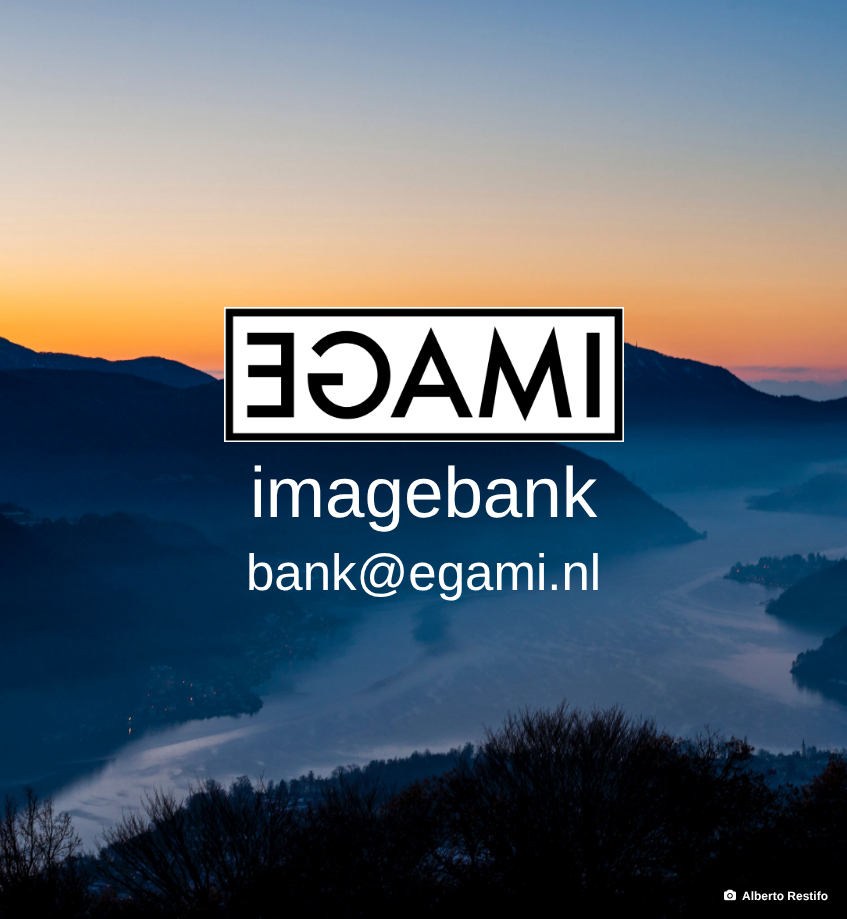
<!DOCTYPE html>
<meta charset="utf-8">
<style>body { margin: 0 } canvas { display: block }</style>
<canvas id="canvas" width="847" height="919"></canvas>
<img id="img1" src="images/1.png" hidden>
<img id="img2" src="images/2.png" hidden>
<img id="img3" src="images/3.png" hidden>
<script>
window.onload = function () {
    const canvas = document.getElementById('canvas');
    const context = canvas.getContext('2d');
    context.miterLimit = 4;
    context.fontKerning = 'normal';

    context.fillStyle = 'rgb(255, 255, 255)';
    context.fillRect(0, 0, 847, 919);
    context.drawImage(document.getElementById('img1'), 0, 0, 847, 919);
    context.drawImage(document.getElementById('img2'), 224, 307, 400, 135);
    context.fillStyle = 'rgb(0, 0, 0)';
    context.beginPath();
    context.roundRect(715, 883, 122, 26, 3);
    context.fill();
    context.drawImage(document.getElementById('img3'), 724, 889, 12, 12);
    context.font = '71px Liberation Sans';
    context.fillStyle = 'rgb(255, 255, 255)';
    context.fillText('imagebank', 250, 517);
    context.font = '51px Liberation Sans';
    context.fillText('bank@egami.nl', 246, 590);
    context.font = 'bold 12px Liberation Sans';
    context.fillText('Alberto Restifo', 742, 900);
};
</script>
